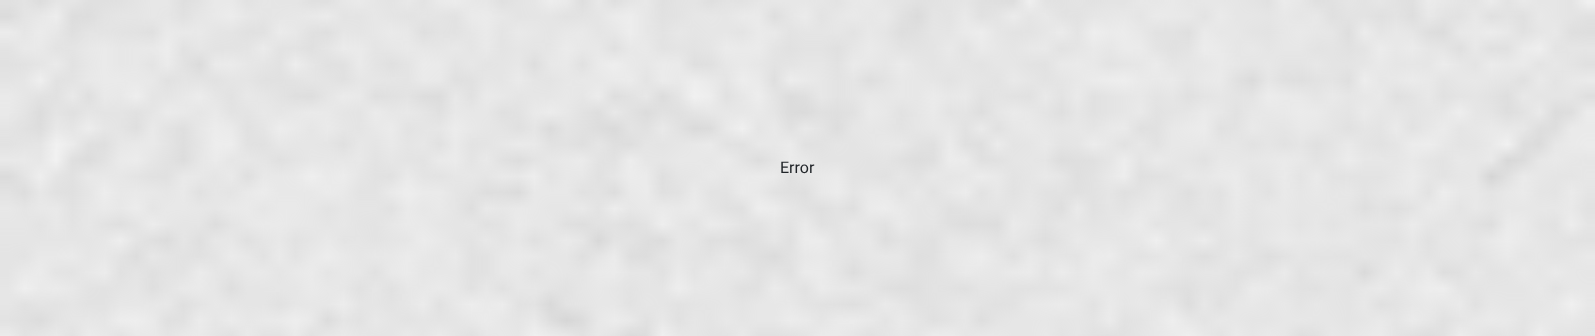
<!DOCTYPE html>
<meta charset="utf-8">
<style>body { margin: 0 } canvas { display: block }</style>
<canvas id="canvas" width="1595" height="336"></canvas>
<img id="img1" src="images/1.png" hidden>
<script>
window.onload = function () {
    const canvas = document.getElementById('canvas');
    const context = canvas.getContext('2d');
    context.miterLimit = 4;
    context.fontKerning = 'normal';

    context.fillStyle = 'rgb(255, 255, 255)';
    context.fillRect(0, 0, 1595, 336);
    context.drawImage(document.getElementById('img1'), 0, 0, 1595, 336);
    context.font = '16px Roboto';
    context.fillStyle = 'rgb(33, 37, 41)';
    context.fillText('Error', 780, 173);
};
</script>
